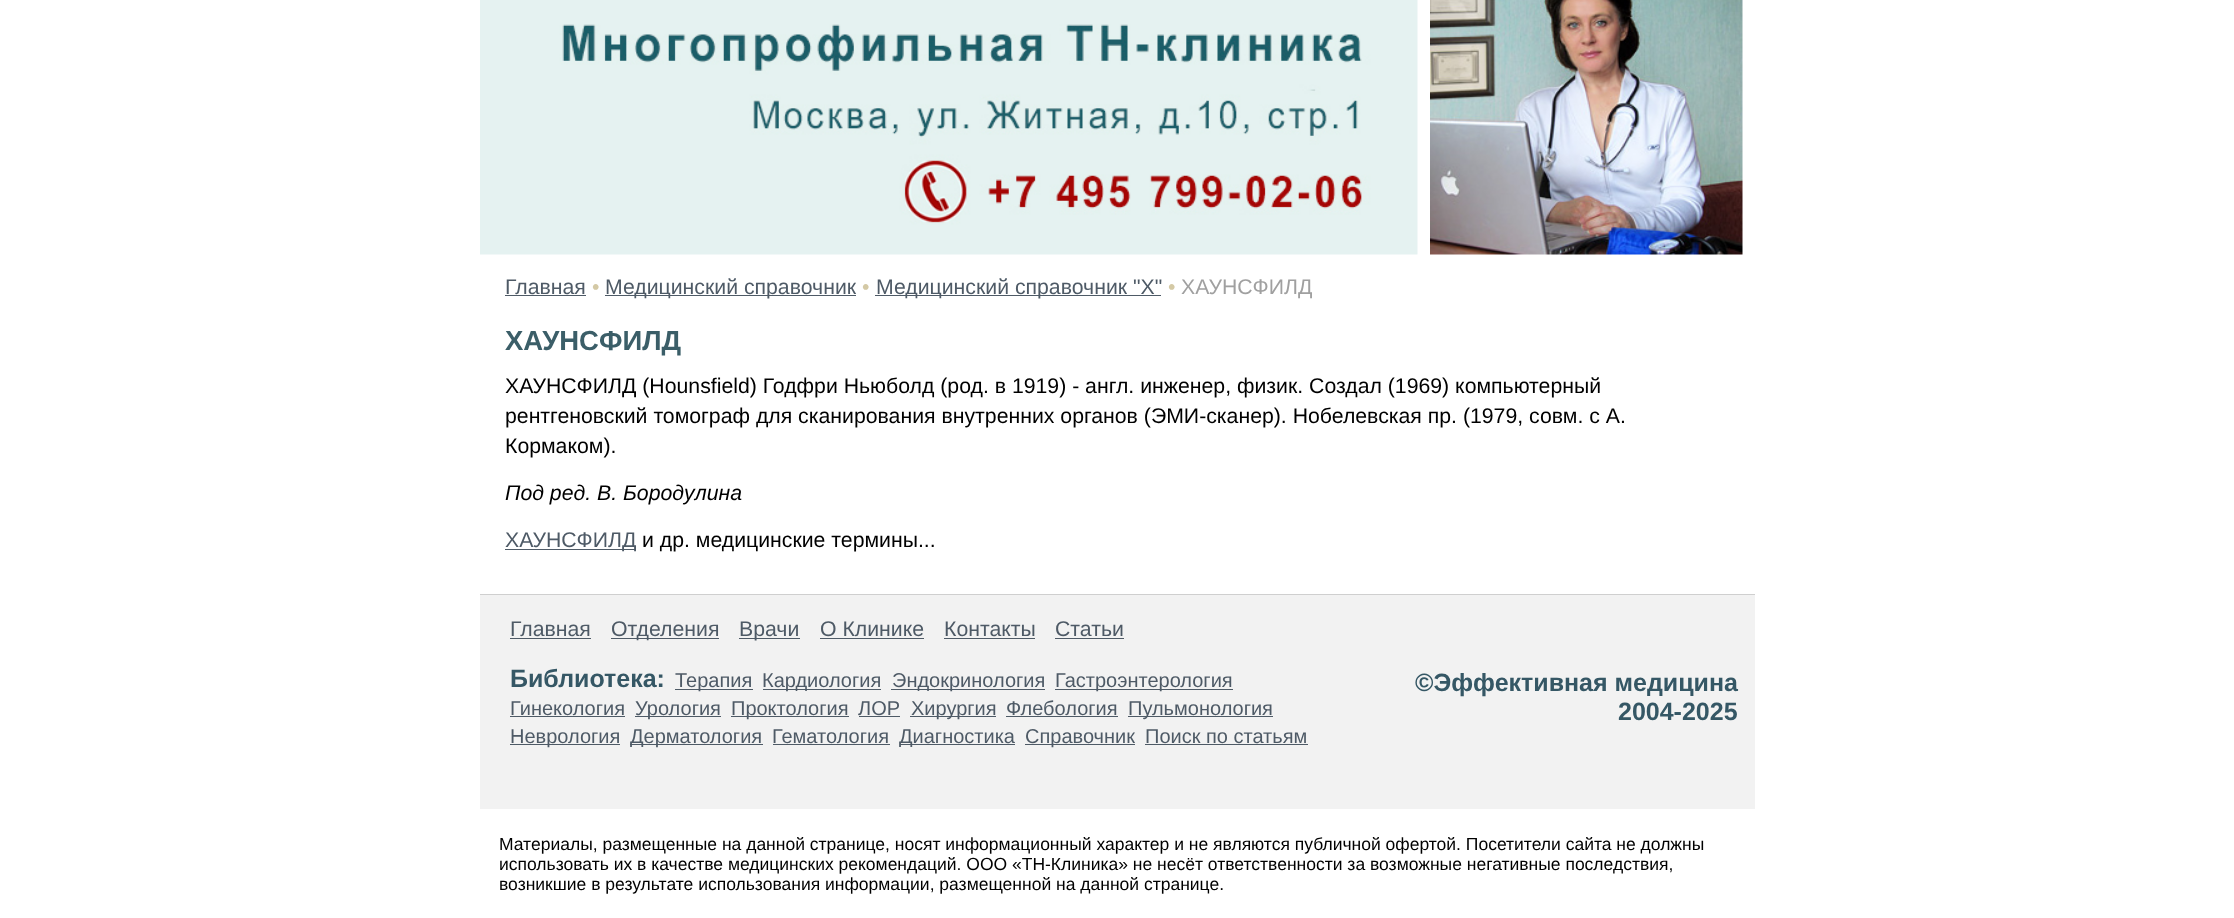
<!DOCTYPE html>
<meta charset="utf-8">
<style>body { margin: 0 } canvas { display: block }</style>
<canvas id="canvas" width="2234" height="918"></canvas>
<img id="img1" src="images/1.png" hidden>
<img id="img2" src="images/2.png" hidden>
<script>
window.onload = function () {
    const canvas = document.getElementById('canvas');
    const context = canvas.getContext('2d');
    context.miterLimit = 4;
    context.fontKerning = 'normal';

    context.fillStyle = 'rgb(255, 255, 255)';
    context.fillRect(0, 0, 2234, 918);
    context.drawImage(document.getElementById('img1'), 480, 0, 938, 255);
    context.drawImage(document.getElementById('img2'), 1430, 0, 313, 255);
    context.fillStyle = 'rgb(78, 90, 102)';
    context.fillRect(505, 295, 81, 1);
    context.fillRect(605, 295, 251, 1);
    context.fillRect(875, 295, 286, 1);
    context.fillRect(505, 549, 131, 1);
    context.fillStyle = 'rgb(207, 207, 207)';
    context.fillRect(480, 594, 1275, 1);
    context.fillStyle = 'rgb(242, 242, 242)';
    context.fillRect(480, 595, 1275, 214);
    context.fillStyle = 'rgb(78, 90, 102)';
    context.fillRect(510, 638, 81, 1);
    context.fillRect(611, 638, 108, 1);
    context.fillRect(739, 638, 61, 1);
    context.fillRect(820, 638, 104, 1);
    context.fillRect(944, 638, 91, 1);
    context.fillRect(1055, 638, 69, 1);
    context.fillRect(675, 689, 78, 1);
    context.fillRect(763, 689, 118, 1);
    context.fillRect(891, 689, 154, 1);
    context.fillRect(1055, 689, 178, 1);
    context.fillRect(510, 716, 115, 1);
    context.fillRect(635, 716, 86, 1);
    context.fillRect(731, 716, 118, 1);
    context.fillRect(859, 716, 41, 1);
    context.fillRect(910, 716, 86, 1);
    context.fillRect(1006, 716, 112, 1);
    context.fillRect(1128, 716, 145, 1);
    context.fillRect(510, 744, 110, 1);
    context.fillRect(630, 744, 133, 1);
    context.fillRect(773, 744, 117, 1);
    context.fillRect(900, 744, 115, 1);
    context.fillRect(1025, 744, 110, 1);
    context.fillRect(1145, 744, 163, 1);
    context.font = '21.25px Liberation Sans';
    context.fillText('Главная', 505, 294);
    context.fillStyle = 'rgb(212, 201, 165)';
    context.fillText('•', 592, 294);
    context.fillStyle = 'rgb(78, 90, 102)';
    context.fillText('Медицинский справочник', 605, 294);
    context.fillStyle = 'rgb(212, 201, 165)';
    context.fillText('•', 862, 294);
    context.fillStyle = 'rgb(78, 90, 102)';
    context.fillText('Медицинский справочник "Х"', 876, 294);
    context.fillStyle = 'rgb(212, 201, 165)';
    context.fillText('•', 1168, 294);
    context.fillStyle = 'rgb(160, 160, 160)';
    context.fillText('ХАУНСФИЛД', 1181, 294);
    context.font = 'bold 27.5px Liberation Sans';
    context.fillStyle = 'rgb(59, 94, 104)';
    context.fillText('ХАУНСФИЛД', 505, 350);
    context.font = '21.25px Liberation Sans';
    context.fillStyle = 'rgb(0, 0, 0)';
    context.fillText('ХАУНСФИЛД (Hounsfield) Годфри Ньюболд (род. в 1919) - англ. инженер, физик. Создал (1969) компьютерный', 505, 393);
    context.fillText('рентгеновский томограф для сканирования внутренних органов (ЭМИ-сканер). Нобелевская пр. (1979, совм. с А.', 505, 423);
    context.fillText('Кормаком).', 505, 453);
    context.font = 'italic 21.25px Liberation Sans';
    context.fillText('Пoд peд. B. Бopoдyлинa', 505, 500);
    context.font = '21.25px Liberation Sans';
    context.fillStyle = 'rgb(78, 90, 102)';
    context.fillText('ХАУНСФИЛД', 505, 547);
    context.fillStyle = 'rgb(0, 0, 0)';
    context.fillText('и др. медицинские термины...', 642, 547);
    context.fillStyle = 'rgb(78, 90, 102)';
    context.fillText('Главная', 510, 636);
    context.fillText('Отделения', 611, 636);
    context.fillText('Врачи', 739, 636);
    context.fillText('О Клинике', 820, 636);
    context.fillText('Контакты', 944, 636);
    context.fillText('Статьи', 1055, 636);
    context.font = 'bold 25px Liberation Sans';
    context.fillStyle = 'rgb(53, 87, 101)';
    context.fillText('Библиотека:', 510, 687);
    context.font = '20px Liberation Sans';
    context.fillStyle = 'rgb(78, 90, 102)';
    context.fillText('Терапия', 675, 687);
    context.fillText('Кардиология', 762, 687);
    context.fillText('Эндокринология', 892, 687);
    context.fillText('Гастроэнтерология', 1055, 687);
    context.fillText('Гинекология', 510, 715);
    context.fillText('Урология', 635, 715);
    context.fillText('Проктология', 731, 715);
    context.fillText('ЛОР', 858, 715);
    context.fillText('Хирургия', 911, 715);
    context.fillText('Флебология', 1006, 715);
    context.fillText('Пульмонология', 1128, 715);
    context.fillText('Неврология', 510, 743);
    context.fillText('Дерматология', 630, 743);
    context.fillText('Гематология', 772, 743);
    context.fillText('Диагностика', 899, 743);
    context.fillText('Справочник', 1025, 743);
    context.fillText('Поиск по статьям', 1145, 743);
    context.font = 'bold 25px Liberation Sans';
    context.fillStyle = 'rgb(53, 87, 101)';
    context.fillText('©Эффективная медицина', 1415, 691);
    context.fillText('2004-2025', 1618, 720);
    context.font = '17.5px Liberation Sans';
    context.fillStyle = 'rgb(0, 0, 0)';
    context.fillText('Материалы, размещенные на данной странице, носят информационный характер и не являются публичной офертой. Посетители сайта не должны', 499, 850);
    context.fillText('использовать их в качестве медицинских рекомендаций. ООО «ТН-Клиника» не несёт ответственности за возможные негативные последствия,', 499, 870);
    context.fillText('возникшие в результате использования информации, размещенной на данной странице.', 499, 890);
};
</script>
